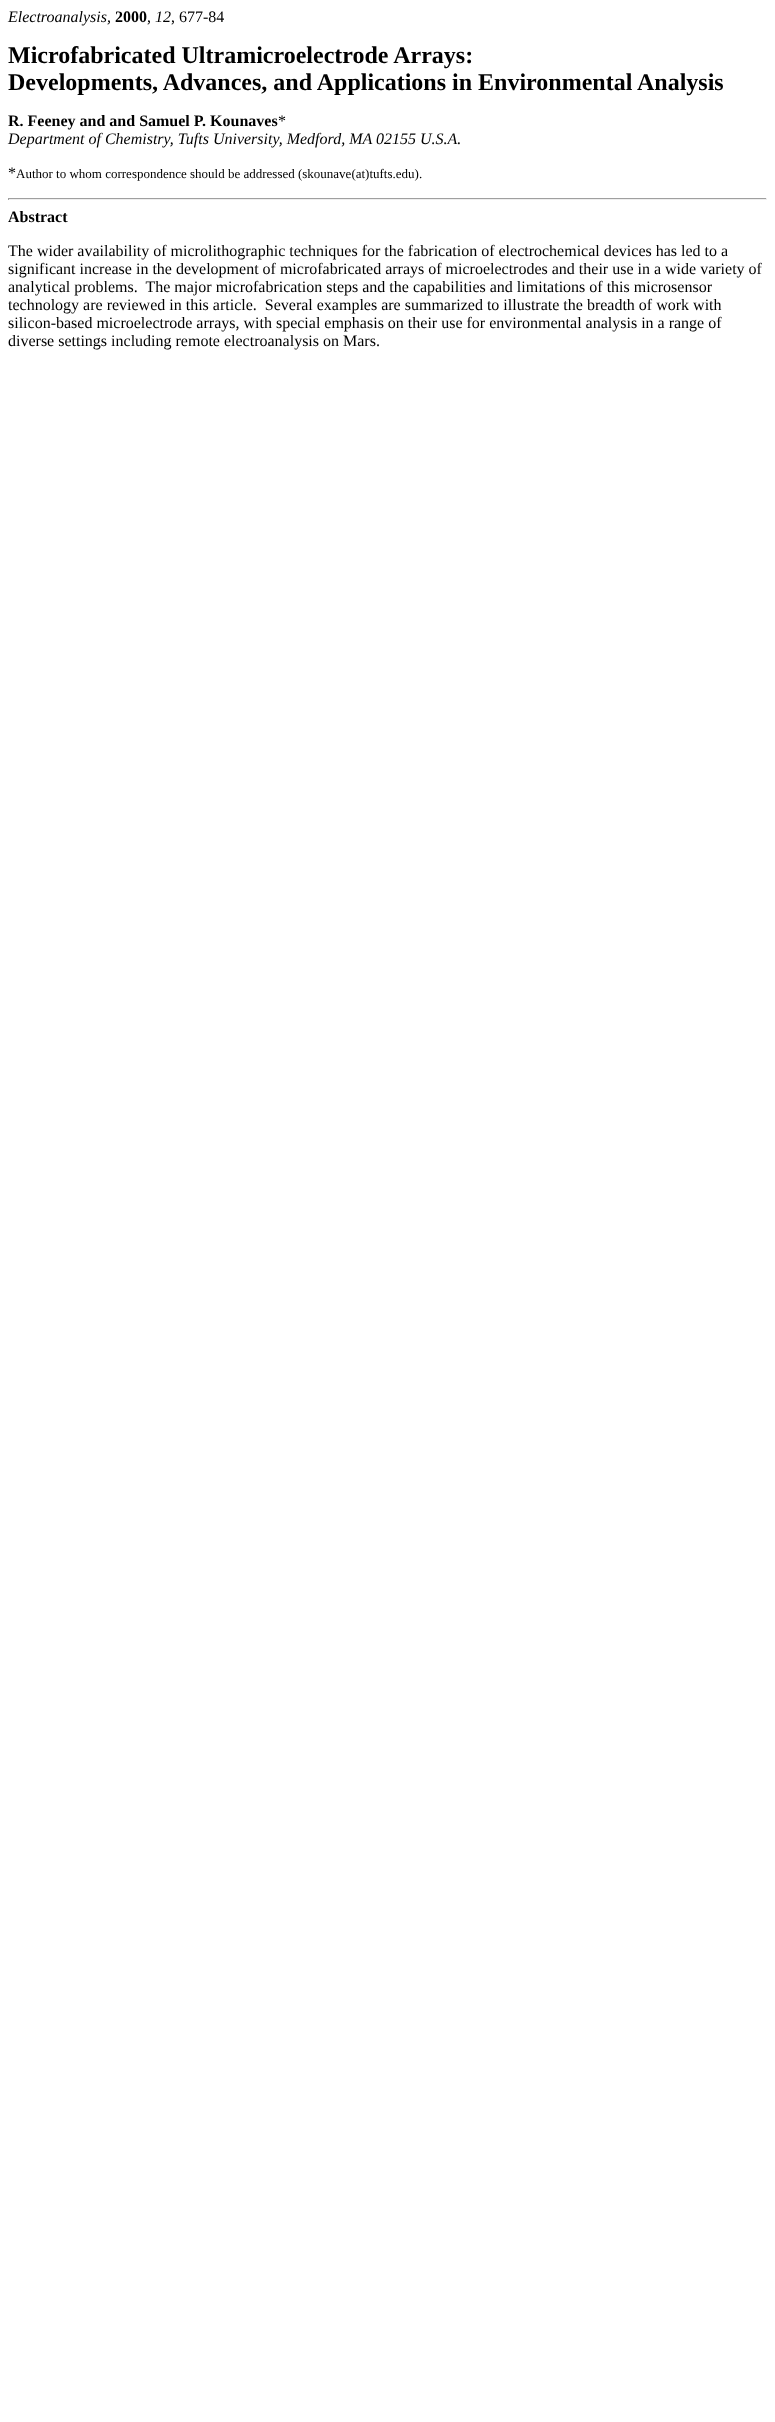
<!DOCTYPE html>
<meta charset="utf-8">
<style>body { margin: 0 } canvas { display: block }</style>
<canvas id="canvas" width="775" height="2422"></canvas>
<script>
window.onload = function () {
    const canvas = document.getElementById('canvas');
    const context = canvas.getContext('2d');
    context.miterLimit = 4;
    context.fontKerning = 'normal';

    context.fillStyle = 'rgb(255, 255, 255)';
    context.fillRect(0, 0, 775, 2422);
    context.fillStyle = 'rgb(159, 159, 159)';
    context.fillRect(8, 198, 759, 1);
    context.fillStyle = 'rgb(238, 238, 238)';
    context.fillRect(766, 198, 1, 2);
    context.fillRect(8, 199, 759, 1);
    context.fillStyle = 'rgb(159, 159, 159)';
    context.fillRect(8, 198, 1, 2);
    context.font = 'italic 16px Liberation Serif';
    context.fillStyle = 'rgb(0, 0, 0)';
    context.fillText('Electroanalysis,', 8, 22);
    context.font = 'bold 16px Liberation Serif';
    context.fillText('2000', 115, 22);
    context.font = '16px Liberation Serif';
    context.fillText(',', 147, 22);
    context.font = 'italic 16px Liberation Serif';
    context.fillText('12', 155, 22);
    context.font = '16px Liberation Serif';
    context.fillText(', 677-84', 171, 22);
    context.font = 'bold 24px Liberation Serif';
    context.fillText('Microfabricated Ultramicroelectrode Arrays:', 8, 63);
    context.fillText('Developments, Advances, and Applications in Environmental Analysis', 8, 90);
    context.font = 'bold 16px Liberation Serif';
    context.fillText('R. Feeney and and Samuel P. Kounaves', 8, 126);
    context.font = '16px Liberation Serif';
    context.fillText('*', 278, 126);
    context.font = 'italic 16px Liberation Serif';
    context.fillText('Department of Chemistry, Tufts University, Medford, MA 02155 U.S.A.', 8, 144);
    context.font = '16px Liberation Serif';
    context.fillText('*', 8, 178);
    context.font = '13px Liberation Serif';
    context.fillText('Author to whom correspondence should be addressed (skounave(at)tufts.edu).', 16, 178);
    context.font = 'bold 16px Liberation Serif';
    context.fillText('Abstract', 8, 222);
    context.font = '16px Liberation Serif';
    context.fillText('The wider availability of microlithographic techniques for the fabrication of electrochemical devices has led to a', 8, 256);
    context.fillText('significant increase in the development of microfabricated arrays of microelectrodes and their use in a wide variety of', 8, 274);
    context.fillText('analytical problems.  The major microfabrication steps and the capabilities and limitations of this microsensor', 8, 292);
    context.fillText('technology are reviewed in this article.  Several examples are summarized to illustrate the breadth of work with', 8, 310);
    context.fillText('silicon-based microelectrode arrays, with special emphasis on their use for environmental analysis in a range of', 8, 328);
    context.fillText('diverse settings including remote electroanalysis on Mars.', 8, 346);
};
</script>
